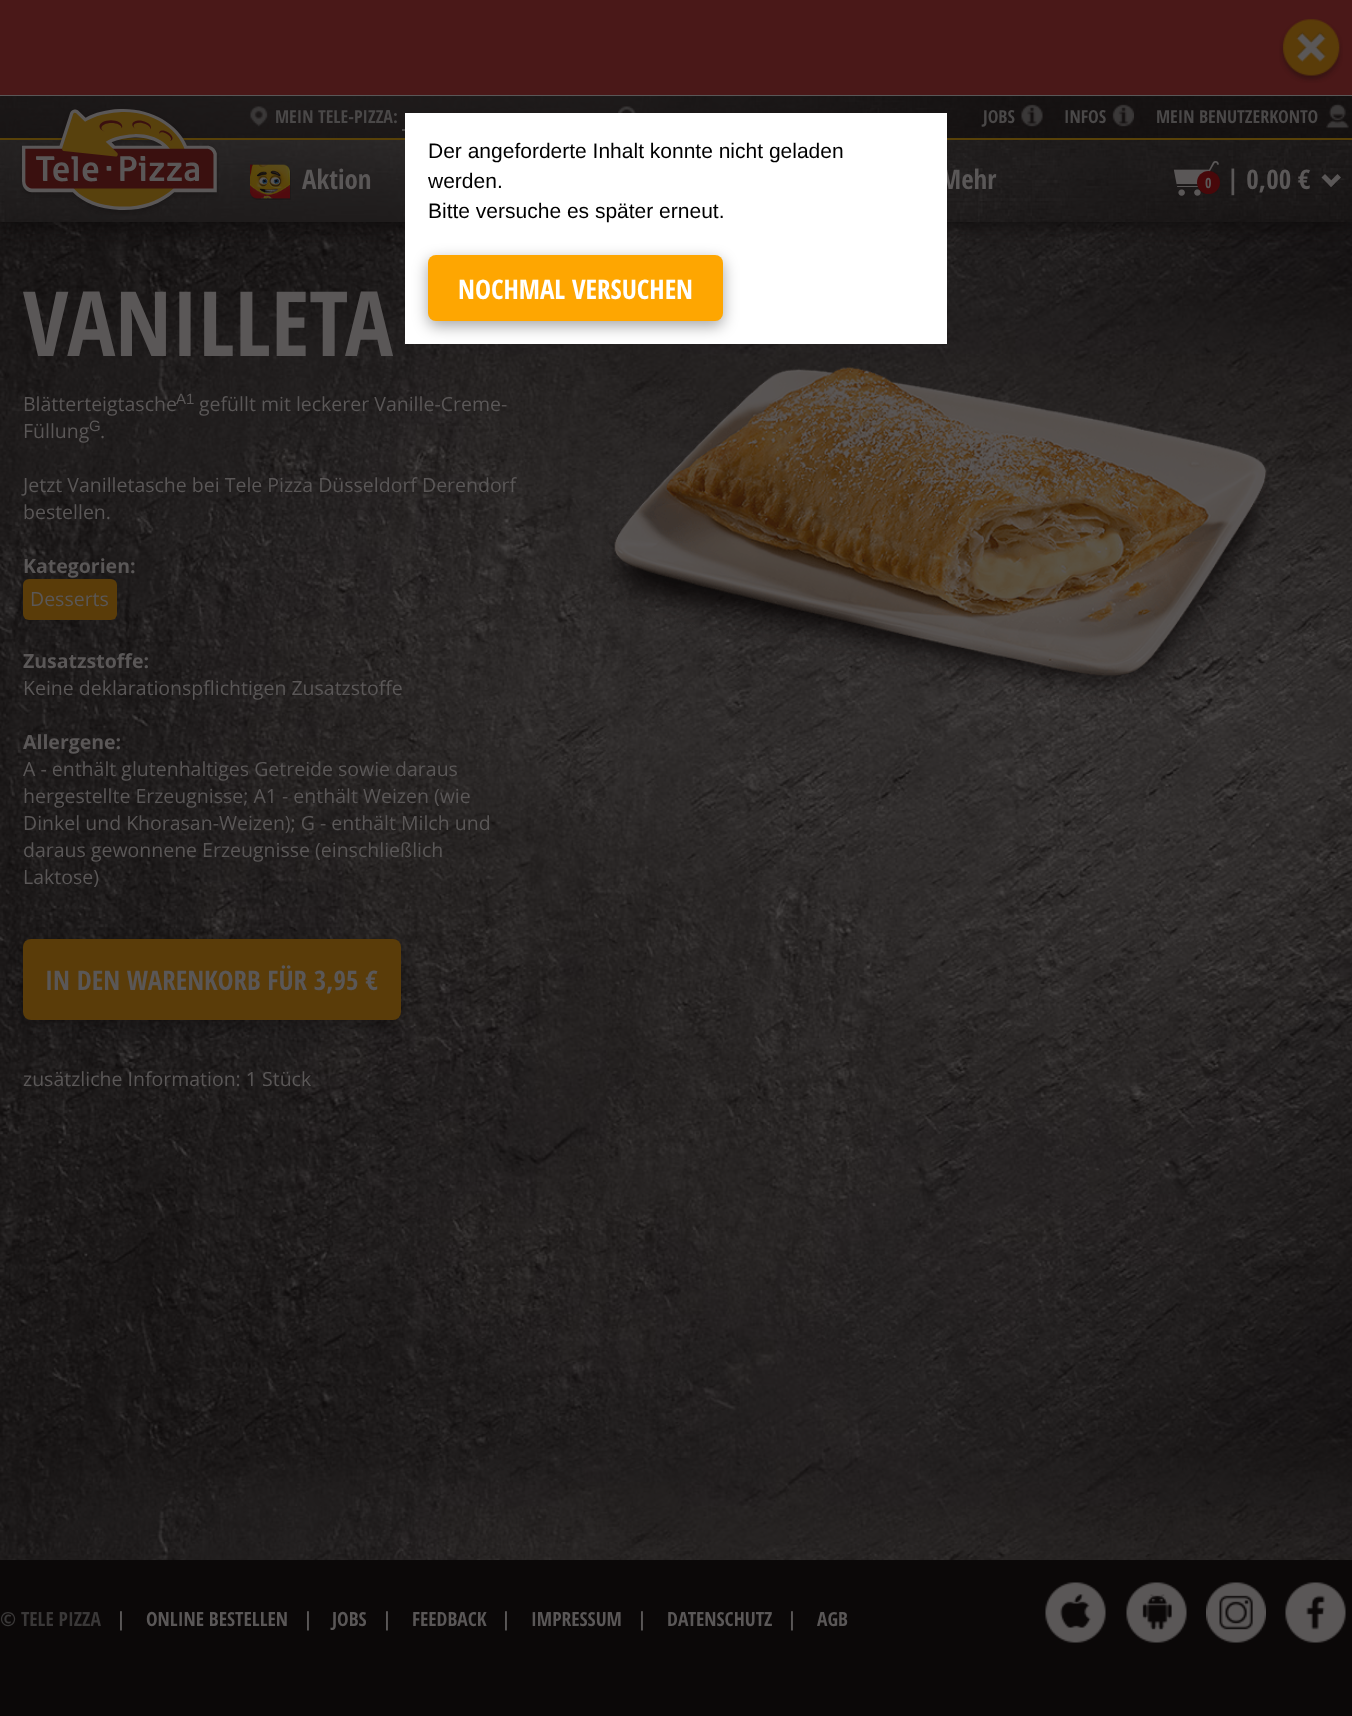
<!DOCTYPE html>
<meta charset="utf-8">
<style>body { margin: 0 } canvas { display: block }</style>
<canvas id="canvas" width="1352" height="1716"></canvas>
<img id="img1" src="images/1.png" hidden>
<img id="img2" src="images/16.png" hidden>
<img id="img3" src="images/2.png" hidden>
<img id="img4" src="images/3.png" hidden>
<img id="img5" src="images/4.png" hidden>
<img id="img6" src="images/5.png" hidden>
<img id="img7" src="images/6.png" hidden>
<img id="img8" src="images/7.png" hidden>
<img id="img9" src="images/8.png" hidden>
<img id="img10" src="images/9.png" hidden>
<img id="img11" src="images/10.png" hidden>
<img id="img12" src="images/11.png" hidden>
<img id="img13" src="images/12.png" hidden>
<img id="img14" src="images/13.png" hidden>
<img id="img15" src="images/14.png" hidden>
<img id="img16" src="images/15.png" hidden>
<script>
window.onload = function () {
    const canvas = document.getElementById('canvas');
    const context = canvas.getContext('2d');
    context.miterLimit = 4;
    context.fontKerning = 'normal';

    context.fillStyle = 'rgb(255, 255, 255)';
    context.fillRect(0, 0, 1352, 1716);
    context.fillStyle = 'rgb(74, 24, 24)';
    context.fillRect(0, 0, 1352, 95);
    context.fillStyle = 'rgb(90, 87, 87)';
    context.fillRect(0, 95, 1352, 1);
    context.drawImage(document.getElementById('img1'), 1279, 19, 64, 64);
    context.drawImage(document.getElementById('img2'), 0, 222, 1352, 1338);
    context.save();
    context.beginPath();
    context.rect(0, 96, 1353, 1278);
    context.clip();
    context.fillStyle = 'rgba(11, 8, 8, 0.75)';
    context.filter = 'blur(10px)';
    context.beginPath();
    context.rect(0, 101, 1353, 126);
    context.fill();
    context.filter = 'none';
    context.restore();
    context.drawImage(document.getElementById('img3'), 0, 96, 1352, 126);
    context.fillStyle = 'rgba(11, 8, 8, 0.5)';
    context.fillRect(0, 96, 1352, 42);
    context.fillStyle = 'rgb(88, 65, 8)';
    context.fillRect(0, 138, 1352, 2);
    context.drawImage(document.getElementById('img4'), 20, 109, 199, 106);
    context.drawImage(document.getElementById('img5'), 250, 106, 18, 21);
    context.fillStyle = 'rgb(74, 72, 72)';
    context.fillRect(402, 129, 3, 2);
    context.drawImage(document.getElementById('img6'), 618, 106, 19, 7);
    context.drawImage(document.getElementById('img7'), 1021, 104, 22, 23);
    context.drawImage(document.getElementById('img8'), 1112, 104, 22, 23);
    context.drawImage(document.getElementById('img9'), 1326, 103, 23, 26);
    context.drawImage(document.getElementById('img10'), 250, 164, 41, 36);
    context.drawImage(document.getElementById('img11'), 1173, 161, 46, 35);
    context.fillStyle = 'rgb(72, 8, 10)';
    context.beginPath();
    context.arc(1208.5, 182.5, 11.5, 0, 2 * Math.PI);
    context.fill();
    context.fillStyle = 'rgb(90, 87, 87)';
    context.beginPath();
    context.moveTo(1337.5, 174);
    context.lineTo(1341, 177.5);
    context.lineTo(1331, 187);
    context.lineTo(1328, 183.5);
    context.closePath();
    context.fill();
    context.beginPath();
    context.moveTo(1325, 174);
    context.lineTo(1334.5, 183.5);
    context.lineTo(1331, 187);
    context.lineTo(1321.5, 177.5);
    context.closePath();
    context.fill();
    context.fillStyle = 'rgb(90, 60, 9)';
    context.beginPath();
    context.roundRect(23, 579, 94, 41, 6);
    context.fill();
    context.fillStyle = 'rgba(11, 8, 8, 0.35)';
    context.filter = 'blur(7.5px)';
    context.beginPath();
    context.roundRect(23, 944, 378, 81, 8);
    context.fill();
    context.filter = 'none';
    context.fillStyle = 'rgb(90, 60, 9)';
    context.beginPath();
    context.roundRect(23, 939, 378, 81, 8);
    context.fill();
    context.drawImage(document.getElementById('img12'), 602, 367, 668, 341);
    context.fillStyle = 'rgb(11, 8, 8)';
    context.fillRect(0, 1560, 1352, 156);
    context.drawImage(document.getElementById('img13'), 1045, 1582, 61, 61);
    context.drawImage(document.getElementById('img14'), 1126, 1582, 61, 61);
    context.drawImage(document.getElementById('img15'), 1206, 1582, 60, 61);
    context.drawImage(document.getElementById('img16'), 1285, 1582, 61, 61);
    context.font = 'bold 18px Open Sans Condensed';
    context.fillStyle = 'rgb(74, 72, 72)';
    context.fillText('MEIN TELE-PIZZA:', 275, 123);
    context.fillText('JOBS', 983, 123);
    context.fillText('INFOS', 1064, 123);
    context.fillText('MEIN BENUTZERKONTO', 1156, 123);
    context.font = 'bold 27px Open Sans Condensed';
    context.fillStyle = 'rgb(90, 87, 87)';
    context.fillText('Aktion', 302, 189);
    context.fillText('Mehr', 940, 189);
    context.font = 'bold 14px Open Sans Condensed';
    context.fillText('0', 1205, 188);
    context.font = 'bold 27px Open Sans Condensed';
    context.fillText('| 0,00 €', 1226, 189);
    context.font = 'bold 90px Open Sans Condensed';
    context.fillText('VANILLETA', 23, 356);
    context.font = '19.5px Open Sans';
    context.fillText('Blätterteigtasche', 23, 411);
    context.font = '15px Liberation Sans';
    context.fillText('A1', 176, 404);
    context.font = '19.5px Open Sans';
    context.fillText('gefüllt mit leckerer Vanille-Creme-', 199, 411);
    context.fillText('Füllung', 23, 438);
    context.font = '15px Liberation Sans';
    context.fillText('G', 89, 431);
    context.font = '19.5px Open Sans';
    context.fillText('.', 100, 438);
    context.fillText('Jetzt Vanilletasche bei Tele Pizza Düsseldorf Derendorf', 23, 492);
    context.fillText('bestellen.', 23, 519);
    context.font = 'bold 19.5px Open Sans';
    context.fillText('Kategorien:', 23, 573);
    context.font = '19.5px Open Sans';
    context.fillText('Desserts', 30, 606);
    context.font = 'bold 19.5px Open Sans';
    context.fillText('Zusatzstoffe:', 23, 668);
    context.font = '19.5px Open Sans';
    context.fillText('Keine deklarationspflichtigen Zusatzstoffe', 23, 695);
    context.font = 'bold 19.5px Open Sans';
    context.fillText('Allergene:', 23, 749);
    context.font = '19.5px Open Sans';
    context.fillText('A - enthält glutenhaltiges Getreide sowie daraus', 23, 776);
    context.fillText('hergestellte Erzeugnisse; A1 - enthält Weizen (wie', 23, 803);
    context.fillText('Dinkel und Khorasan-Weizen); G - enthält Milch und', 23, 830);
    context.fillText('daraus gewonnene Erzeugnisse (einschließlich', 23, 857);
    context.fillText('Laktose)', 23, 884);
    context.font = 'bold 27px Open Sans Condensed';
    context.fillText('IN DEN WARENKORB FÜR 3,95 €', 45, 990);
    context.font = '19.5px Open Sans';
    context.fillText('zusätzliche Information: 1 Stück', 23, 1086);
    context.font = 'bold 19.5px Open Sans Condensed';
    context.fillStyle = 'rgb(58, 56, 56)';
    context.fillText('© TELE PIZZA', 0, 1626);
    context.fillStyle = 'rgb(90, 87, 87)';
    context.fillText('|', 116, 1626);
    context.fillText('ONLINE BESTELLEN', 146, 1626);
    context.fillText('|', 303, 1626);
    context.fillText('JOBS', 332, 1626);
    context.fillText('|', 382, 1626);
    context.fillText('FEEDBACK', 412, 1626);
    context.fillText('|', 501, 1626);
    context.fillText('IMPRESSUM', 531, 1626);
    context.fillText('|', 637, 1626);
    context.fillText('DATENSCHUTZ', 667, 1626);
    context.fillText('|', 787, 1626);
    context.fillText('AGB', 817, 1626);
    context.fillStyle = 'rgb(255, 255, 255)';
    context.fillRect(405, 113, 542, 231);
    context.font = '21px Liberation Sans';
    context.fillStyle = 'rgb(0, 0, 0)';
    context.fillText('Der angeforderte Inhalt konnte nicht geladen', 428, 158);
    context.fillText('werden.', 428, 188);
    context.fillText('Bitte versuche es später erneut.', 428, 218);
    context.fillStyle = 'rgba(0, 0, 0, 0.35)';
    context.filter = 'blur(7.5px)';
    context.beginPath();
    context.roundRect(428, 260, 295, 66, 8);
    context.fill();
    context.filter = 'none';
    context.fillStyle = 'rgb(254, 166, 1)';
    context.beginPath();
    context.roundRect(428, 255, 295, 66, 8);
    context.fill();
    context.font = 'bold 27px Open Sans Condensed';
    context.fillStyle = 'rgb(255, 255, 255)';
    context.fillText('NOCHMAL VERSUCHEN', 458, 299);
};
</script>
